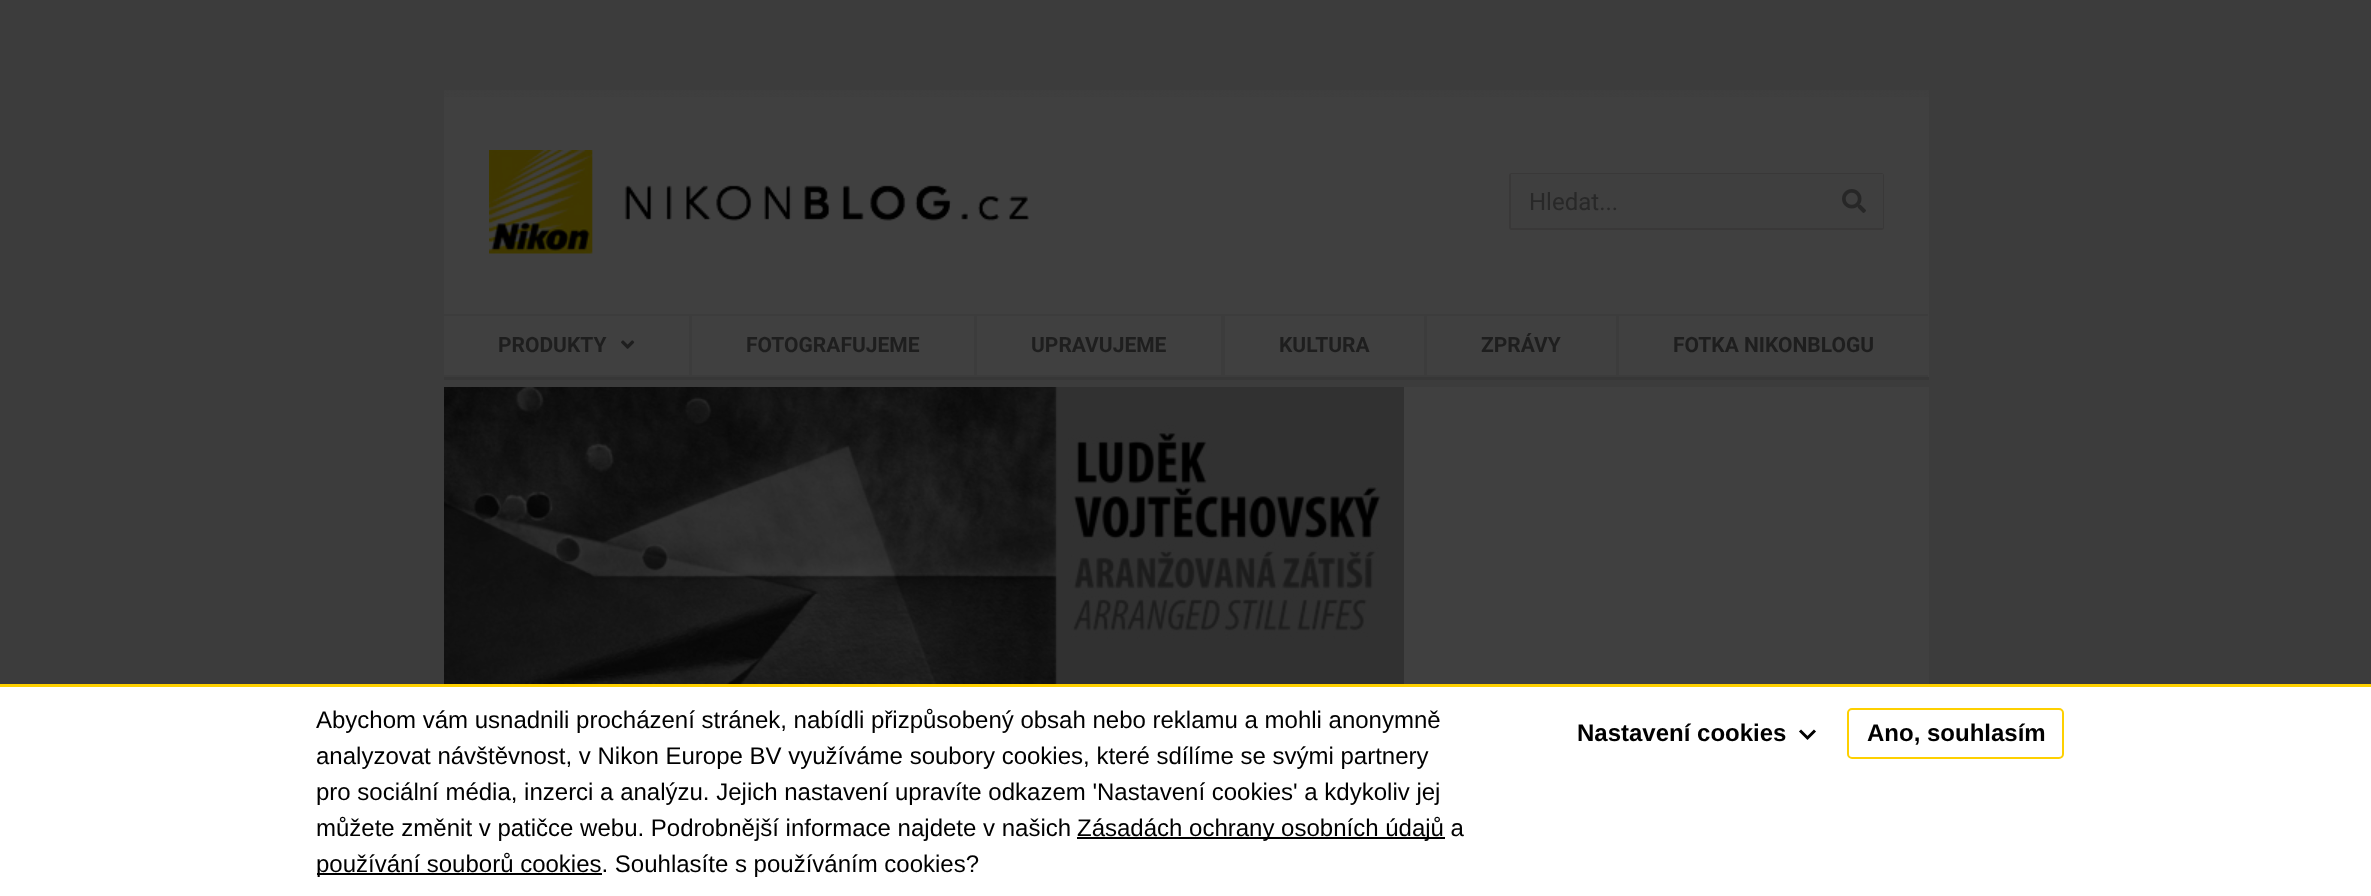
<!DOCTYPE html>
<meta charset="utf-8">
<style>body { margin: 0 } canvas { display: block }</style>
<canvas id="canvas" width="2371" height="896"></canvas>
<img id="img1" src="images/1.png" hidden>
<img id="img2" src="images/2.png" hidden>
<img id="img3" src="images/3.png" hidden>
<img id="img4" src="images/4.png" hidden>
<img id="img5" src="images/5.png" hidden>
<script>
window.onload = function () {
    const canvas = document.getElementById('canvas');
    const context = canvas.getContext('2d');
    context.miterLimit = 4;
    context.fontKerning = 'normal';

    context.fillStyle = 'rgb(60, 60, 60)';
    context.fillRect(0, 0, 2371, 896);
    context.fillStyle = 'rgb(64, 64, 64)';
    context.fillRect(444, 90, 1485, 287);
    context.drawImage(document.getElementById('img1'), 444, 90, 1485, 7);
    context.drawImage(document.getElementById('img2'), 489, 150, 540, 104);
    context.beginPath();
    context.roundRect(1510, 174, 373, 55, 2);
    context.strokeStyle = 'rgb(57, 56, 56)';
    context.lineWidth = 2;
    context.stroke();
    context.fillStyle = 'rgb(63, 63, 63)';
    context.fillRect(1511, 174, 372, 54);
    context.drawImage(document.getElementById('img3'), 1842, 189, 24, 24);
    context.fillStyle = 'rgb(60, 60, 60)';
    context.fillRect(689, 314, 1, 63);
    context.fillRect(444, 314, 245, 2);
    context.fillRect(444, 375, 245, 2);
    context.drawImage(document.getElementById('img4'), 621, 340, 14, 9);
    context.fillRect(974, 314, 1, 63);
    context.fillRect(690, 314, 284, 2);
    context.fillRect(690, 375, 284, 2);
    context.fillRect(690, 314, 2, 63);
    context.fillRect(1221, 314, 2, 63);
    context.fillRect(975, 314, 246, 2);
    context.fillRect(975, 375, 246, 2);
    context.fillRect(975, 314, 2, 63);
    context.fillRect(1424, 314, 1, 63);
    context.fillRect(1223, 314, 201, 2);
    context.fillRect(1223, 375, 201, 2);
    context.fillRect(1223, 314, 2, 63);
    context.fillRect(1616, 314, 1, 63);
    context.fillRect(1425, 314, 191, 2);
    context.fillRect(1425, 375, 191, 2);
    context.fillRect(1425, 314, 2, 63);
    context.fillRect(1617, 314, 311, 2);
    context.fillRect(1617, 375, 311, 2);
    context.fillRect(1617, 314, 2, 63);
    context.fillStyle = 'rgb(55, 55, 55)';
    context.fillRect(444, 377, 1485, 3);
    context.fillStyle = 'rgb(64, 64, 64)';
    context.fillRect(1404, 387, 525, 297);
    context.drawImage(document.getElementById('img5'), 444, 387, 960, 297);
    context.fillStyle = 'rgb(255, 255, 255)';
    context.fillRect(0, 687, 2371, 209);
    context.fillStyle = 'rgb(254, 208, 0)';
    context.fillRect(0, 684, 2371, 3);
    context.fillStyle = 'rgb(0, 0, 0)';
    context.fillRect(1077, 837, 368, 2);
    context.fillRect(317, 873, 285, 2);
    context.beginPath();
    context.moveTo(1800, 730.5);
    context.lineTo(1807.5, 738);
    context.lineTo(1815, 730.5);
    context.strokeStyle = 'rgb(0, 0, 0)';
    context.lineWidth = 3;
    context.stroke();
    context.beginPath();
    context.roundRect(1848, 709, 215, 49, 4);
    context.strokeStyle = 'rgb(254, 208, 0)';
    context.lineWidth = 2;
    context.stroke();
    context.font = '24px Roboto';
    context.fillStyle = 'rgb(40, 40, 40)';
    context.fillText('Hledat...', 1529, 210);
    context.font = 'bold 21px Roboto';
    context.fillStyle = 'rgb(30, 30, 30)';
    context.fillText('PRODUKTY', 498, 352);
    context.fillText('FOTOGRAFUJEME', 746, 352);
    context.fillText('UPRAVUJEME', 1031, 352);
    context.fillText('KULTURA', 1279, 352);
    context.fillText('ZPRÁVY', 1481, 352);
    context.fillText('FOTKA NIKONBLOGU', 1673, 352);
    context.font = '24px Liberation Sans';
    context.fillStyle = 'rgb(0, 0, 0)';
    context.fillText('Abychom vám usnadnili procházení stránek, nabídli přizpůsobený obsah nebo reklamu a mohli anonymně', 316, 728);
    context.fillText('analyzovat návštěvnost, v Nikon Europe BV využíváme soubory cookies, které sdílíme se svými partnery', 316, 764);
    context.fillText('pro sociální média, inzerci a analýzu. Jejich nastavení upravíte odkazem \'Nastavení cookies\' a kdykoliv jej', 316, 800);
    context.fillText('můžete změnit v patičce webu. Podrobnější informace najdete v našich', 316, 836);
    context.fillText('Zásadách ochrany osobních údajů a', 1077, 836);
    context.fillText('používání souborů cookies. Souhlasíte s používáním cookies?', 316, 872);
    context.font = 'bold 24px Liberation Sans';
    context.fillText('Nastavení cookies', 1577, 741);
    context.fillText('Ano, souhlasím', 1867, 741);
};
</script>
